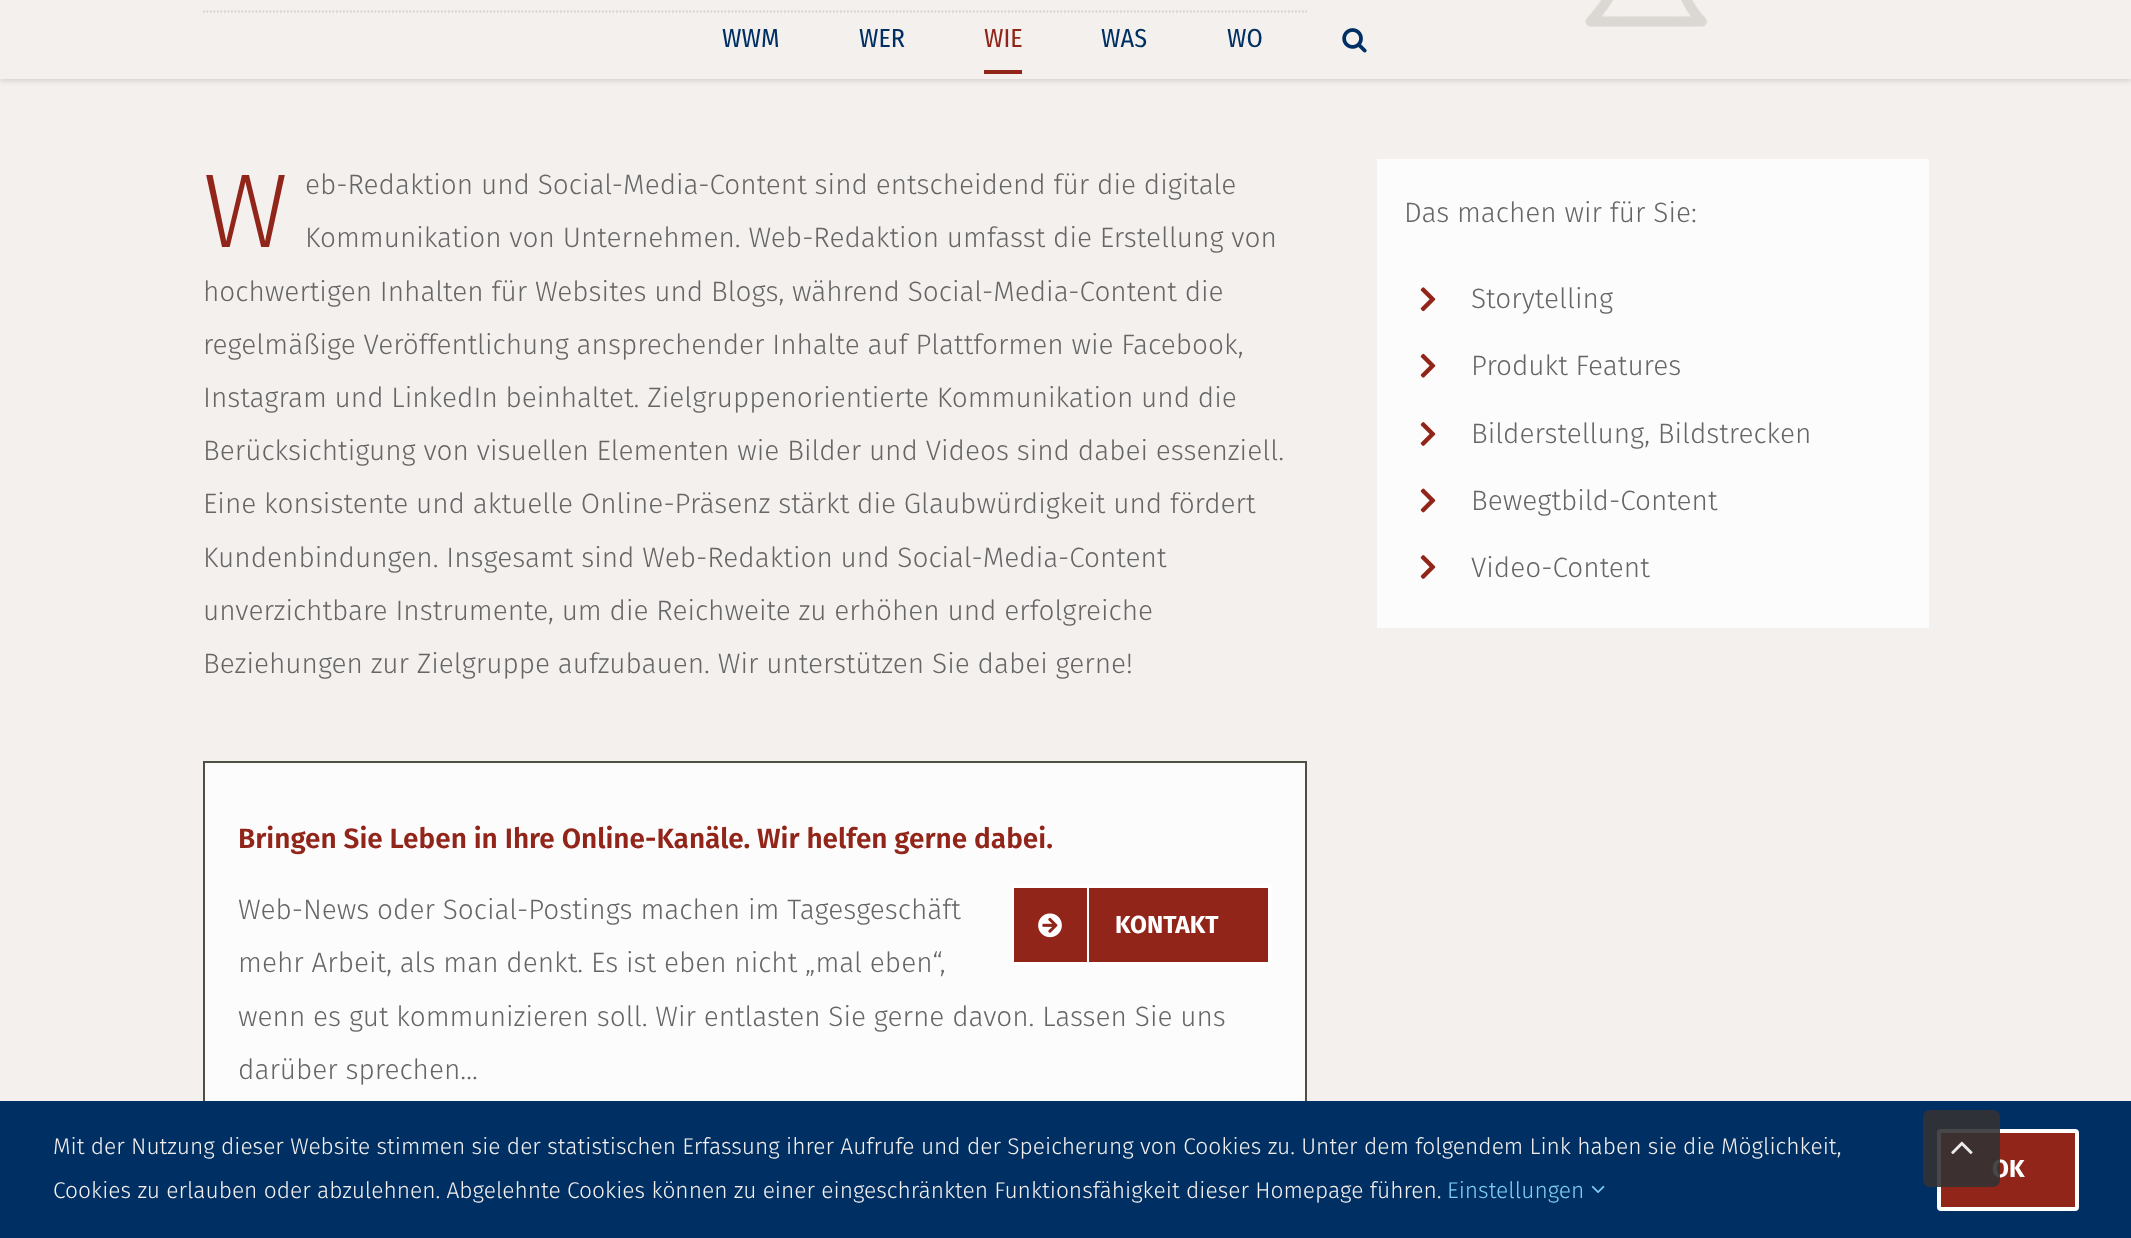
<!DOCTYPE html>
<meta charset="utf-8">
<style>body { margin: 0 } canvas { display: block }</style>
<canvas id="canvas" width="2131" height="1238"></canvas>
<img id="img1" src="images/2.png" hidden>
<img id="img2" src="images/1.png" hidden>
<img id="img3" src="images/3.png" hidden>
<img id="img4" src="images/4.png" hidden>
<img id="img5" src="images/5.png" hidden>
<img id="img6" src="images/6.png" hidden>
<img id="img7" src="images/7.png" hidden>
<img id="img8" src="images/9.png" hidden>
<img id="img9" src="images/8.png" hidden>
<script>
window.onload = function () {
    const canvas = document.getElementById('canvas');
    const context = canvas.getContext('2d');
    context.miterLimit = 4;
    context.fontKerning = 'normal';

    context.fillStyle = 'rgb(244, 240, 238)';
    context.fillRect(0, 0, 2131, 1238);
    context.beginPath();
    context.moveTo(203, 11.5);
    context.lineTo(1307, 11.5);
    context.strokeStyle = 'rgb(78, 80, 70)';
    context.lineWidth = 1.8;
    context.setLineDash([1.75, 1.75]);
    context.stroke();
    context.drawImage(document.getElementById('img1'), 1584, 0, 124, 28);
    context.save();
    context.beginPath();
    context.moveTo(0, 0);
    context.lineTo(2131, 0);
    context.lineTo(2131, 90);
    context.lineTo(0, 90);
    context.closePath();
    context.moveTo(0, 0);
    context.lineTo(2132, 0);
    context.lineTo(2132, 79);
    context.lineTo(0, 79);
    context.closePath();
    context.clip('evenodd');
    context.fillStyle = 'rgba(0, 0, 0, 0.12)';
    context.filter = 'blur(2.5px)';
    context.beginPath();
    context.rect(0, 2, 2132, 79);
    context.fill();
    context.filter = 'none';
    context.restore();
    context.fillStyle = 'rgba(244, 240, 238, 0.8)';
    context.fillRect(0, 0, 2131, 79);
    context.fillStyle = 'rgb(146, 37, 26)';
    context.fillRect(984, 70, 38, 4);
    context.drawImage(document.getElementById('img2'), 1342, 28, 25, 25);
    context.fillStyle = 'rgb(253, 252, 252)';
    context.fillRect(1377, 159, 552, 469);
    context.drawImage(document.getElementById('img3'), 1420, 287, 16, 25);
    context.drawImage(document.getElementById('img4'), 1420, 353, 16, 25);
    context.drawImage(document.getElementById('img5'), 1420, 422, 16, 24);
    context.drawImage(document.getElementById('img6'), 1420, 488, 16, 25);
    context.drawImage(document.getElementById('img5'), 1420, 555, 16, 24);
    context.fillRect(205, 763, 1100, 338);
    context.lineWidth = 2;
    context.setLineDash([]);
    context.strokeRect(204, 762, 1102, 371);
    context.fillStyle = 'rgb(146, 37, 26)';
    context.beginPath();
    context.roundRect(1012, 886, 258, 78, 2);
    context.fill();
    context.strokeStyle = 'rgb(255, 255, 255)';
    context.lineWidth = 4;
    context.stroke();
    context.fillStyle = 'rgb(255, 255, 255)';
    context.fillRect(1087, 887, 2, 76);
    context.drawImage(document.getElementById('img7'), 1038, 913, 24, 25);
    context.fillStyle = 'rgb(0, 48, 99)';
    context.fillRect(0, 1101, 2131, 137);
    context.drawImage(document.getElementById('img8'), 1591, 1185, 14, 9);
    context.fillStyle = 'rgb(146, 37, 26)';
    context.beginPath();
    context.roundRect(1939, 1131, 138, 78, 2);
    context.fill();
    context.stroke();
    context.font = '26px Fira Sans Condensed';
    context.fillStyle = 'rgb(0, 48, 99)';
    context.fillText('WWM', 722, 47);
    context.fillText('WER', 859, 47);
    context.fillStyle = 'rgb(146, 37, 26)';
    context.fillText('WIE', 984, 47);
    context.fillStyle = 'rgb(0, 48, 99)';
    context.fillText('WAS', 1101, 47);
    context.fillText('WO', 1227, 47);
    context.font = '300 105px Fira Sans';
    context.fillStyle = 'rgb(146, 37, 26)';
    context.fillText('W', 203, 247);
    context.font = '300 28px Fira Sans';
    context.fillStyle = 'rgb(102, 102, 102)';
    context.fillText('eb-Redaktion und Social-Media-Content sind entscheidend für die digitale', 305, 194);
    context.fillText('Kommunikation von Unternehmen. Web-Redaktion umfasst die Erstellung von', 305, 247);
    context.fillText('hochwertigen Inhalten für Websites und Blogs, während Social-Media-Content die', 203, 301);
    context.fillText('regelmäßige Veröffentlichung ansprechender Inhalte auf Plattformen wie Facebook,', 203, 354);
    context.fillText('Instagram und LinkedIn beinhaltet. Zielgruppenorientierte Kommunikation und die', 203, 407);
    context.fillText('Berücksichtigung von visuellen Elementen wie Bilder und Videos sind dabei essenziell.', 203, 460);
    context.fillText('Eine konsistente und aktuelle Online-Präsenz stärkt die Glaubwürdigkeit und fördert', 203, 513);
    context.fillText('Kundenbindungen. Insgesamt sind Web-Redaktion und Social-Media-Content', 203, 567);
    context.fillText('unverzichtbare Instrumente, um die Reichweite zu erhöhen und erfolgreiche', 203, 620);
    context.fillText('Beziehungen zur Zielgruppe aufzubauen. Wir unterstützen Sie dabei gerne!', 203, 673);
    context.fillText('Das machen wir für Sie:', 1404, 222);
    context.fillText('Storytelling', 1471, 308);
    context.fillText('Produkt Features', 1471, 375);
    context.fillText('Bilderstellung, Bildstrecken', 1471, 443);
    context.fillText('Bewegtbild-Content', 1471, 510);
    context.fillText('Video-Content', 1471, 577);
    context.font = '600 28px Fira Sans';
    context.fillStyle = 'rgb(146, 37, 26)';
    context.fillText('Bringen Sie Leben in Ihre Online-Kanäle. Wir helfen gerne dabei.', 238, 848);
    context.font = '300 28px Fira Sans';
    context.fillStyle = 'rgb(102, 102, 102)';
    context.fillText('Web-News oder Social-Postings machen im Tagesgeschäft', 238, 919);
    context.fillText('mehr Arbeit, als man denkt. Es ist eben nicht „mal eben“,', 238, 972);
    context.fillText('wenn es gut kommunizieren soll. Wir entlasten Sie gerne davon. Lassen Sie uns', 238, 1026);
    context.fillText('darüber sprechen…', 238, 1079);
    context.font = 'bold 24.5px Fira Sans';
    context.fillStyle = 'rgb(255, 255, 255)';
    context.fillText('KONTAKT', 1115, 933);
    context.font = '300 22.75px Fira Sans';
    context.fillStyle = 'rgb(244, 240, 238)';
    context.fillText('Mit der Nutzung dieser Website stimmen sie der statistischen Erfassung ihrer Aufrufe und der Speicherung von Cookies zu. Unter dem folgendem Link haben sie die Möglichkeit,', 53, 1154);
    context.fillText('Cookies zu erlauben oder abzulehnen. Abgelehnte Cookies können zu einer eingeschränkten Funktionsfähigkeit dieser Homepage führen.', 53, 1198);
    context.fillStyle = 'rgb(127, 207, 244)';
    context.fillText('Einstellungen', 1447, 1198);
    context.font = 'bold 24.5px Fira Sans';
    context.fillStyle = 'rgb(255, 255, 255)';
    context.fillText('OK', 1992, 1177);
    context.fillStyle = 'rgba(51, 51, 51, 0.9)';
    context.beginPath();
    context.roundRect(1923, 1110, 77, 77, 7);
    context.fill();
    context.drawImage(document.getElementById('img9'), 1951, 1141, 22, 14);
};
</script>
